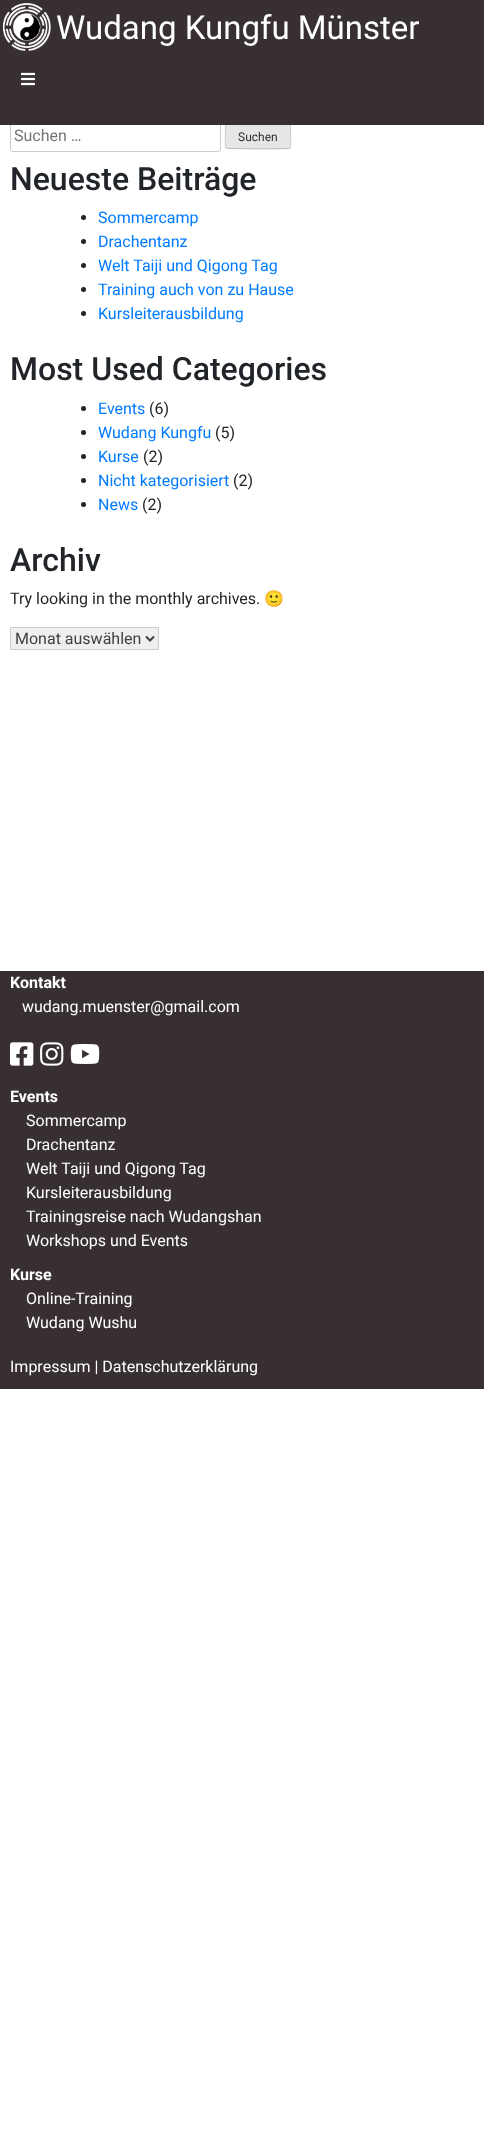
<!DOCTYPE html>
<meta charset="utf-8">
<style>body { margin: 0 } canvas { display: block }</style>
<canvas id="canvas" width="484" height="2152"></canvas>
<img id="img1" src="images/1.png" hidden>
<img id="img2" src="images/2.png" hidden>
<img id="img3" src="images/3.png" hidden>
<img id="img4" src="images/4.png" hidden>
<img id="img5" src="images/5.png" hidden>
<script>
window.onload = function () {
    const canvas = document.getElementById('canvas');
    const context = canvas.getContext('2d');
    context.miterLimit = 4;
    context.fontKerning = 'normal';

    context.fillStyle = 'rgb(255, 255, 255)';
    context.fillRect(0, 0, 484, 2152);
    context.beginPath();
    context.roundRect(10.5, 120.5, 210, 31, 2.5);
    context.strokeStyle = 'rgb(204, 204, 204)';
    context.stroke();
    context.fillStyle = 'rgb(230, 230, 230)';
    context.beginPath();
    context.roundRect(225, 123, 66, 26, 3);
    context.fill();
    context.beginPath();
    context.moveTo(290, 148);
    context.lineTo(288, 148.5);
    context.bezierCurveTo(283, 149, 227.5, 149, 226.5, 148);
    context.lineTo(226, 148);
    context.strokeStyle = 'rgb(187, 187, 187)';
    context.stroke();
    context.beginPath();
    context.moveTo(226, 148);
    context.bezierCurveTo(224.5, 146, 225.5, 138.5, 225.5, 136);
    context.bezierCurveTo(225.5, 121.5, 223, 123.5, 238, 123.5);
    context.lineTo(278, 123.5);
    context.bezierCurveTo(293, 123.5, 290.5, 121.5, 290.5, 136);
    context.bezierCurveTo(290.5, 138.5, 291.5, 146, 290, 148);
    context.strokeStyle = 'rgb(204, 204, 204)';
    context.stroke();
    context.fillStyle = 'rgb(56, 48, 48)';
    context.fillRect(0, 0, 484, 125);
    context.drawImage(document.getElementById('img1'), 3, 3, 48, 48);
    context.drawImage(document.getElementById('img2'), 21, 72, 14, 14);
    context.fillStyle = 'rgb(33, 37, 41)';
    context.beginPath();
    context.arc(83.5, 217.5, 2.5, 0, 2 * Math.PI);
    context.fill();
    context.beginPath();
    context.arc(83.5, 241.5, 2.5, 0, 2 * Math.PI);
    context.fill();
    context.beginPath();
    context.arc(83.5, 265.5, 2.5, 0, 2 * Math.PI);
    context.fill();
    context.beginPath();
    context.arc(83.5, 289.5, 2.5, 0, 2 * Math.PI);
    context.fill();
    context.beginPath();
    context.arc(83.5, 313.5, 2.5, 0, 2 * Math.PI);
    context.fill();
    context.beginPath();
    context.arc(83.5, 408.5, 2.5, 0, 2 * Math.PI);
    context.fill();
    context.beginPath();
    context.arc(83.5, 432.5, 2.5, 0, 2 * Math.PI);
    context.fill();
    context.beginPath();
    context.arc(83.5, 456.5, 2.5, 0, 2 * Math.PI);
    context.fill();
    context.beginPath();
    context.arc(83.5, 480.5, 2.5, 0, 2 * Math.PI);
    context.fill();
    context.beginPath();
    context.arc(83.5, 504.5, 2.5, 0, 2 * Math.PI);
    context.fill();
    context.fillStyle = 'rgb(239, 239, 239)';
    context.beginPath();
    context.rect(10.5, 627.5, 148, 22);
    context.fill();
    context.stroke();
    context.beginPath();
    context.moveTo(146, 636.5);
    context.lineTo(150, 640.5);
    context.lineTo(154, 636.5);
    context.strokeStyle = 'rgb(64, 64, 64)';
    context.lineWidth = 2;
    context.stroke();
    context.fillStyle = 'rgb(56, 48, 48)';
    context.fillRect(0, 971, 484, 418);
    context.drawImage(document.getElementById('img3'), 10, 1042, 24, 24);
    context.drawImage(document.getElementById('img4'), 40, 1042, 24, 24);
    context.drawImage(document.getElementById('img5'), 70, 1044, 30, 20);
    context.font = '33px Roboto';
    context.fillStyle = 'rgb(255, 255, 255)';
    context.fillText('Wudang Kungfu Münster', 56, 39);
    context.font = '16px Roboto';
    context.fillStyle = 'rgb(117, 117, 117)';
    context.fillText('Suchen …', 14, 141);
    context.font = '12px Roboto';
    context.fillStyle = 'rgb(46, 46, 46)';
    context.fillText('Suchen', 238, 141);
    context.font = '500 32px Roboto';
    context.fillStyle = 'rgb(33, 37, 41)';
    context.fillText('Neueste Beiträge', 10, 190);
    context.font = '16px Roboto';
    context.fillStyle = 'rgb(0, 123, 255)';
    context.fillText('Sommercamp', 98, 223);
    context.fillText('Drachentanz', 98, 247);
    context.fillText('Welt Taiji und Qigong Tag', 98, 271);
    context.fillText('Training auch von zu Hause', 98, 295);
    context.fillText('Kursleiterausbildung', 98, 319);
    context.font = '500 32px Roboto';
    context.fillStyle = 'rgb(33, 37, 41)';
    context.fillText('Most Used Categories', 10, 380);
    context.font = '16px Roboto';
    context.fillStyle = 'rgb(0, 123, 255)';
    context.fillText('Events', 98, 414);
    context.fillStyle = 'rgb(33, 37, 41)';
    context.fillText('(6)', 149, 414);
    context.fillStyle = 'rgb(0, 123, 255)';
    context.fillText('Wudang Kungfu', 98, 438);
    context.fillStyle = 'rgb(33, 37, 41)';
    context.fillText('(5)', 215, 438);
    context.fillStyle = 'rgb(0, 123, 255)';
    context.fillText('Kurse', 98, 462);
    context.fillStyle = 'rgb(33, 37, 41)';
    context.fillText('(2)', 143, 462);
    context.fillStyle = 'rgb(0, 123, 255)';
    context.fillText('Nicht kategorisiert', 98, 486);
    context.fillStyle = 'rgb(33, 37, 41)';
    context.fillText('(2)', 233, 486);
    context.fillStyle = 'rgb(0, 123, 255)';
    context.fillText('News', 98, 510);
    context.fillStyle = 'rgb(33, 37, 41)';
    context.fillText('(2)', 142, 510);
    context.font = '500 32px Roboto';
    context.fillText('Archiv', 10, 571);
    context.font = '16px Roboto';
    context.fillText('Try looking in the monthly archives.', 10, 604);
    context.font = '16px Noto Color Emoji';
    context.fillText('🙂', 264, 604);
    context.font = '16px Roboto';
    context.fillStyle = 'rgb(64, 64, 64)';
    context.fillText('Monat auswählen', 15, 644);
    context.font = 'bold 16px Roboto';
    context.fillStyle = 'rgb(255, 255, 255)';
    context.fillText('Kontakt', 10, 988);
    context.font = '16px Roboto';
    context.fillText('wudang.muenster@gmail.com', 22, 1012);
    context.font = 'bold 16px Roboto';
    context.fillText('Events', 10, 1102);
    context.font = '16px Roboto';
    context.fillText('Sommercamp', 26, 1126);
    context.fillText('Drachentanz', 26, 1150);
    context.fillText('Welt Taiji und Qigong Tag', 26, 1174);
    context.fillText('Kursleiterausbildung', 26, 1198);
    context.fillText('Trainingsreise nach Wudangshan', 26, 1222);
    context.fillText('Workshops und Events', 26, 1246);
    context.font = 'bold 16px Roboto';
    context.fillText('Kurse', 10, 1280);
    context.font = '16px Roboto';
    context.fillText('Online-Training', 26, 1304);
    context.fillText('Wudang Wushu', 26, 1328);
    context.fillText('Impressum | Datenschutzerklärung', 10, 1372);
};
</script>
